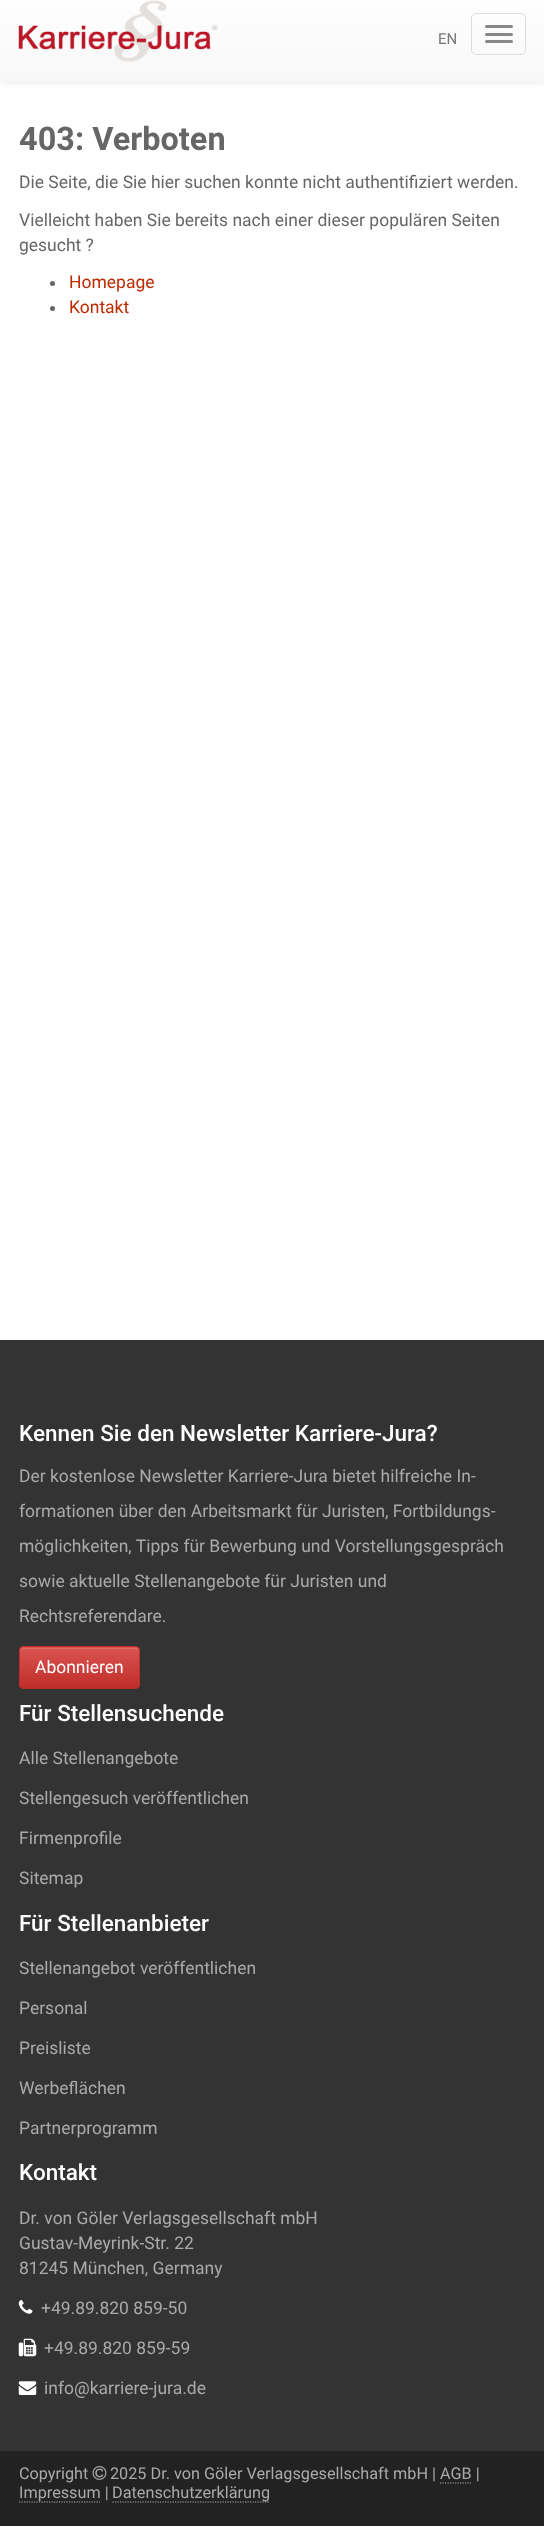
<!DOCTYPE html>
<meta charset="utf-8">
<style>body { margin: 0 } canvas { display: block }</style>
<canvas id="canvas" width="544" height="2544"></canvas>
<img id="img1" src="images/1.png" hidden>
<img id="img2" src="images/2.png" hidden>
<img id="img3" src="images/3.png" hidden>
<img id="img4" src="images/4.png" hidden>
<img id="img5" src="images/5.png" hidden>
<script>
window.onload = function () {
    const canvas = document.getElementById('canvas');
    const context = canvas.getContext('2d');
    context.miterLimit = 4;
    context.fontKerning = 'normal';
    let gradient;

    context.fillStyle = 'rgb(255, 255, 255)';
    context.fillRect(0, 0, 544, 2544);
    context.fillStyle = 'rgba(0, 0, 0, 0.07)';
    context.filter = 'blur(3px)';
    context.beginPath();
    context.rect(0, -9, 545, 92);
    context.fill();
    context.filter = 'none';
    gradient = context.createLinearGradient(273, -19, 273, 81);
    gradient.addColorStop(0, 'rgb(255, 255, 255)');
    gradient.addColorStop(1, 'rgb(248, 248, 248)');
    context.fillStyle = gradient;
    context.fillRect(0, 0, 544, 81);
    context.drawImage(document.getElementById('img1'), 18, 0, 200, 62);
    context.beginPath();
    context.roundRect(471.5, 13.5, 54, 41, 4.5);
    context.strokeStyle = 'rgb(221, 221, 221)';
    context.stroke();
    context.fillStyle = 'rgb(136, 136, 136)';
    context.beginPath();
    context.roundRect(485, 25, 28, 3, 1.5);
    context.fill();
    context.beginPath();
    context.roundRect(485, 33, 28, 3, 1.5);
    context.fill();
    context.beginPath();
    context.roundRect(485, 40, 28, 3, 1.5);
    context.fill();
    context.fillStyle = 'rgb(102, 102, 102)';
    context.beginPath();
    context.arc(52.5, 283.5, 2.5, 0, 2 * Math.PI);
    context.fill();
    context.beginPath();
    context.arc(52.5, 308.5, 2.5, 0, 2 * Math.PI);
    context.fill();
    context.fillStyle = 'rgb(51, 51, 51)';
    context.fillRect(0, 1340, 544, 1111);
    context.fillStyle = 'rgb(217, 83, 79)';
    context.beginPath();
    context.roundRect(19, 1646, 121, 43, 5);
    context.fill();
    context.save();
    context.beginPath();
    context.roundRect(19, 1646, 121, 43, 5);
    context.clip();
    gradient = context.createLinearGradient(79, 1648, 79, 1688);
    gradient.addColorStop(0, 'rgb(217, 83, 79)');
    gradient.addColorStop(1, 'rgb(193, 46, 42)');
    context.fillStyle = gradient;
    context.fillRect(19, 1648, 121, 40);
    context.restore();
    context.fillStyle = 'rgb(223, 109, 105)';
    context.beginPath();
    context.moveTo(24, 1649);
    context.lineTo(135, 1649);
    context.bezierCurveTo(137, 1649, 139, 1650, 139, 1652);
    context.bezierCurveTo(139, 1650, 137, 1648, 135, 1648);
    context.lineTo(24, 1648);
    context.bezierCurveTo(22, 1648, 20, 1650, 20, 1652);
    context.bezierCurveTo(20, 1650, 22, 1649, 24, 1649);
    context.closePath();
    context.fill();
    context.beginPath();
    context.roundRect(19.5, 1646.5, 120, 42, 4.5);
    context.strokeStyle = 'rgb(185, 44, 40)';
    context.stroke();
    context.drawImage(document.getElementById('img2'), 18, 2300, 15, 14);
    context.drawImage(document.getElementById('img3'), 18, 2338, 19, 19);
    context.drawImage(document.getElementById('img4'), 18, 2381, 19, 14);
    context.fillStyle = 'rgb(34, 34, 34)';
    context.fillRect(0, 2451, 544, 75);
    context.drawImage(document.getElementById('img5'), 92, 2466, 15, 14);
    context.beginPath();
    context.moveTo(440, 2483);
    context.lineTo(471, 2483);
    context.strokeStyle = 'rgb(170, 170, 170)';
    context.lineWidth = 1.2;
    context.setLineDash([1.25, 1.25]);
    context.stroke();
    context.beginPath();
    context.moveTo(19, 2502);
    context.lineTo(100, 2502);
    context.stroke();
    context.beginPath();
    context.moveTo(112.5, 2502);
    context.lineTo(270, 2502);
    context.stroke();
    context.font = '15px Roboto';
    context.fillStyle = 'rgb(119, 119, 119)';
    context.fillText('EN', 438, 44);
    context.font = 'bold 32.5px Roboto';
    context.fillStyle = 'rgb(102, 102, 102)';
    context.fillText('403: Verboten', 19, 150);
    context.font = '17.5px Roboto';
    context.fillText('Die Seite, die Sie hier suchen konnte nicht authentifiziert werden.', 19, 188);
    context.fillText('Vielleicht haben Sie bereits nach einer dieser populären Seiten', 19, 226);
    context.fillText('gesucht ?', 19, 251);
    context.fillStyle = 'rgb(189, 42, 0)';
    context.fillText('Homepage', 69, 288);
    context.fillText('Kontakt', 69, 313);
    context.font = '500 22.5px Roboto';
    context.fillStyle = 'rgb(255, 255, 255)';
    context.fillText('Kennen Sie den Newsletter Karriere-Jura?', 19, 1441);
    context.font = '17.5px Roboto';
    context.fillStyle = 'rgb(170, 170, 170)';
    context.fillText('Der kostenlose Newsletter Karriere-Jura bietet hilfreiche In-', 19, 1482);
    context.fillText('formationen über den Arbeitsmarkt für Juristen, Fortbildungs-', 19, 1517);
    context.fillText('möglichkeiten, Tipps für Bewerbung und Vorstellungsgespräch', 19, 1552);
    context.fillText('sowie aktuelle Stellenangebote für Juristen und', 19, 1587);
    context.fillText('Rechtsreferendare.', 19, 1622);
    context.fillStyle = 'rgb(255, 255, 255)';
    context.fillText('Abonnieren', 35, 1673);
    context.font = '500 22.5px Roboto';
    context.fillText('Für Stellensuchende', 19, 1721);
    context.font = '17.5px Roboto';
    context.fillStyle = 'rgb(170, 170, 170)';
    context.fillText('Alle Stellenangebote', 19, 1764);
    context.fillText('Stellengesuch veröffentlichen', 19, 1804);
    context.fillText('Firmenprofile', 19, 1844);
    context.fillText('Sitemap', 19, 1884);
    context.font = '500 22.5px Roboto';
    context.fillStyle = 'rgb(255, 255, 255)';
    context.fillText('Für Stellenanbieter', 19, 1931);
    context.font = '17.5px Roboto';
    context.fillStyle = 'rgb(170, 170, 170)';
    context.fillText('Stellenangebot veröffentlichen', 19, 1974);
    context.fillText('Personal', 19, 2014);
    context.fillText('Preisliste', 19, 2054);
    context.fillText('Werbeflächen', 19, 2094);
    context.fillText('Partnerprogramm', 19, 2134);
    context.font = '500 22.5px Roboto';
    context.fillStyle = 'rgb(255, 255, 255)';
    context.fillText('Kontakt', 19, 2180);
    context.font = '17.5px Roboto';
    context.fillStyle = 'rgb(170, 170, 170)';
    context.fillText('Dr. von Göler Verlagsgesellschaft mbH', 19, 2224);
    context.fillText('Gustav-Meyrink-Str. 22', 19, 2249);
    context.fillText('81245 München, Germany', 19, 2274);
    context.fillText('+49.89.820 859-50', 41, 2314);
    context.fillText('+49.89.820 859-59', 44, 2354);
    context.fillText('info@karriere-jura.de', 44, 2394);
    context.font = '16.25px Roboto';
    context.fillText('Copyright', 19, 2479);
    context.fillText('2025 Dr. von Göler Verlagsgesellschaft mbH | AGB |', 110, 2479);
    context.fillText('Impressum |', 19, 2498);
    context.fillText('Datenschutzerklärung', 112, 2498);
};
</script>
